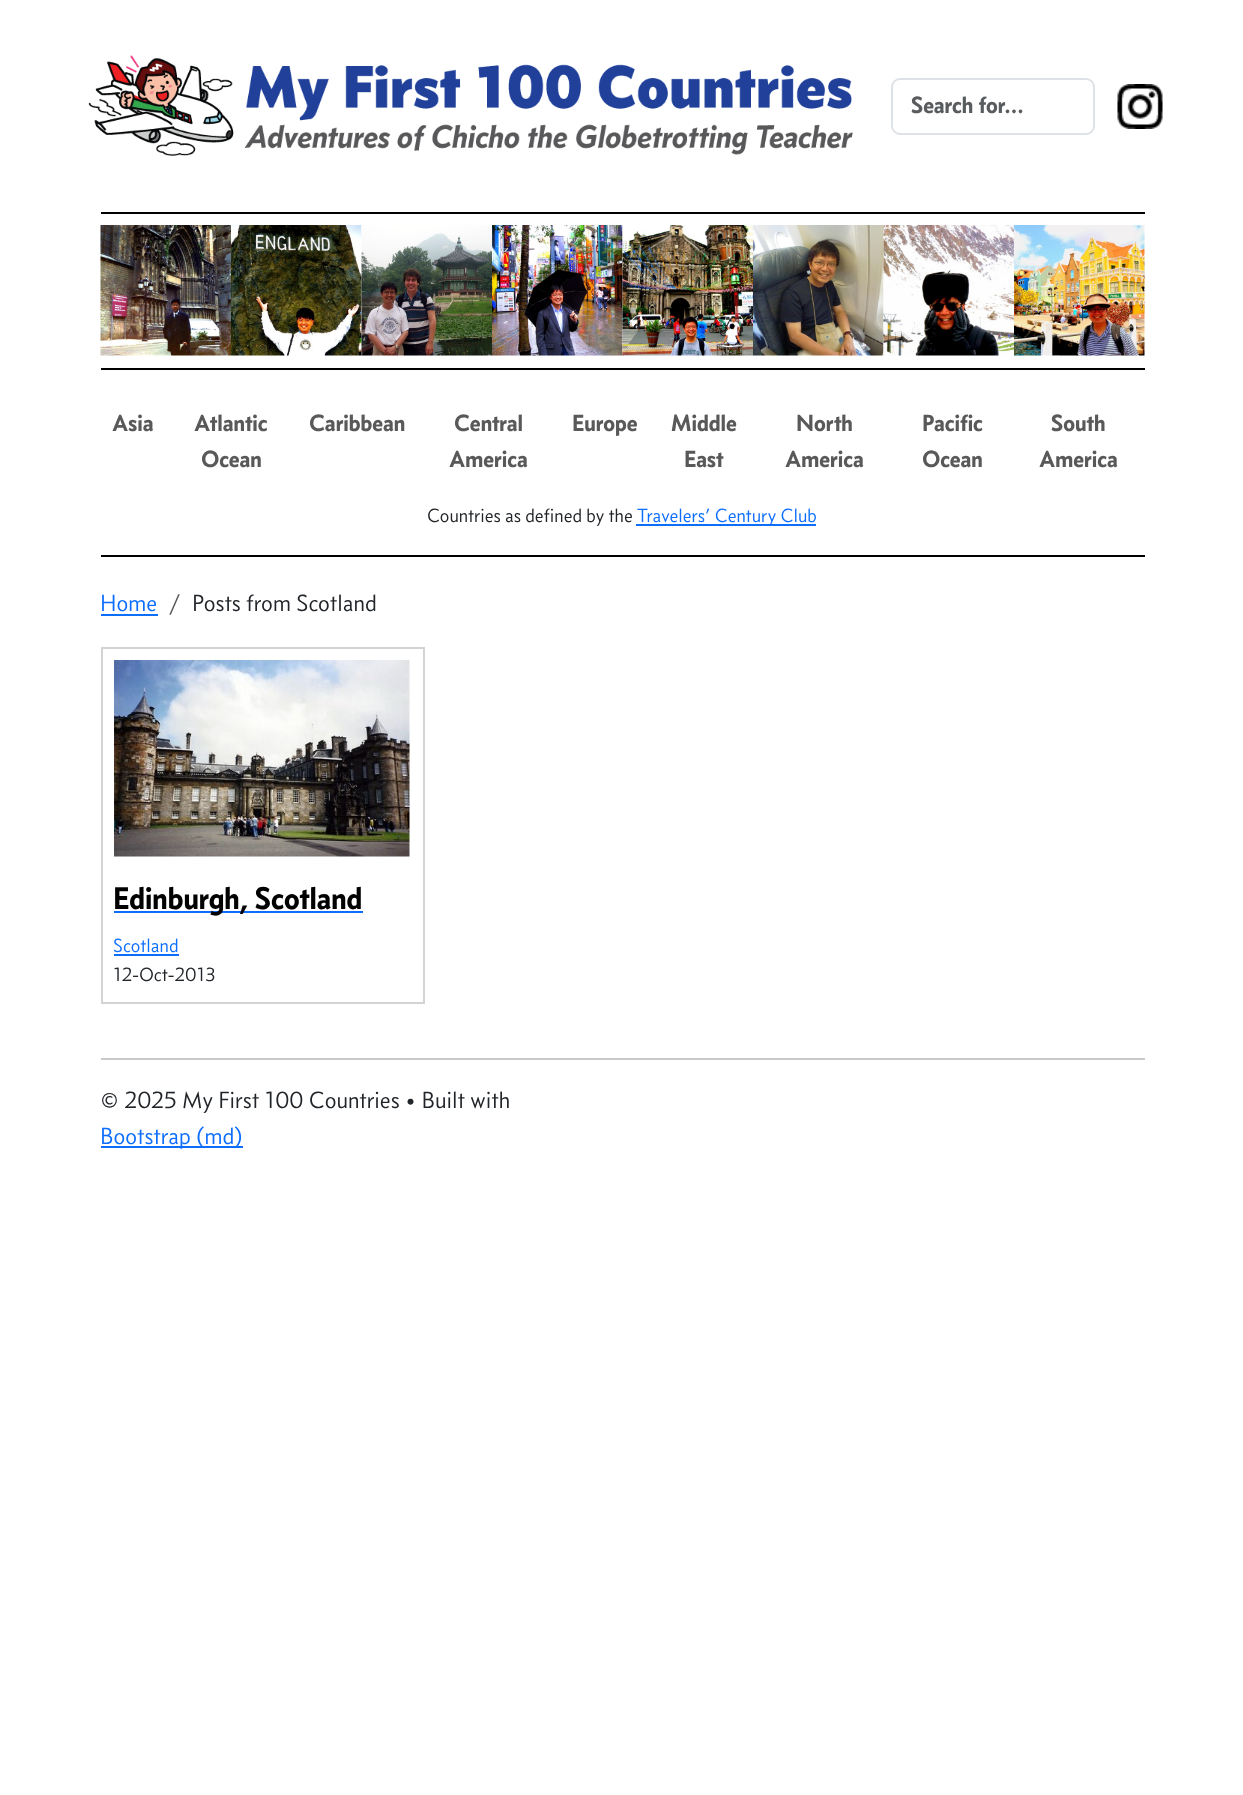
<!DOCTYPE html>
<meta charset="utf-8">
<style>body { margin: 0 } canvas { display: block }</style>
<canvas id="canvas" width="1243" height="1795"></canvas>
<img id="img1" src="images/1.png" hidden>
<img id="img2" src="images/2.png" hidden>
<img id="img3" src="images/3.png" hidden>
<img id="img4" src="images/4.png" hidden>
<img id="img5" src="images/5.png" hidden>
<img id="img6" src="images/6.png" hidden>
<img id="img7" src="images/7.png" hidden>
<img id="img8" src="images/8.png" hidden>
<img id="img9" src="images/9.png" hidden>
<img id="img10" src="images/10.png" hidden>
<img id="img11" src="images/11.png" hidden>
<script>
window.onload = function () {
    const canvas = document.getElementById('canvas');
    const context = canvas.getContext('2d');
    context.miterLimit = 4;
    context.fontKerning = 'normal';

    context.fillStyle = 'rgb(255, 255, 255)';
    context.fillRect(0, 0, 1243, 1795);
    context.drawImage(document.getElementById('img1'), 88, 55, 765, 101);
    context.beginPath();
    context.roundRect(892, 79, 202, 55, 8);
    context.strokeStyle = 'rgb(222, 226, 230)';
    context.lineWidth = 2;
    context.stroke();
    context.drawImage(document.getElementById('img2'), 1117, 84, 46, 45);
    context.fillStyle = 'rgb(0, 0, 0)';
    context.fillRect(101, 212, 1044, 2);
    context.drawImage(document.getElementById('img3'), 100, 225, 131, 131);
    context.drawImage(document.getElementById('img4'), 231, 225, 131, 131);
    context.drawImage(document.getElementById('img5'), 361, 225, 131, 131);
    context.drawImage(document.getElementById('img6'), 492, 225, 131, 131);
    context.drawImage(document.getElementById('img7'), 622, 225, 131, 131);
    context.drawImage(document.getElementById('img8'), 753, 225, 131, 131);
    context.drawImage(document.getElementById('img9'), 883, 225, 131, 131);
    context.drawImage(document.getElementById('img10'), 1014, 225, 131, 131);
    context.fillRect(101, 368, 1044, 2);
    context.fillRect(101, 555, 1044, 2);
    context.fillStyle = 'rgb(13, 110, 253)';
    context.fillRect(636, 524, 180, 2);
    context.fillRect(101, 614, 57, 2);
    context.strokeStyle = 'rgb(211, 211, 211)';
    context.strokeRect(102, 648, 322, 355);
    context.drawImage(document.getElementById('img11'), 114, 660, 296, 197);
    context.fillRect(114, 911, 249, 2);
    context.fillRect(114, 954, 65, 2);
    context.fillStyle = 'rgb(200, 201, 202)';
    context.fillRect(101, 1058, 1044, 2);
    context.fillStyle = 'rgb(13, 110, 253)';
    context.fillRect(101, 1146, 142, 2);
    context.font = 'bold 24px "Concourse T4"';
    context.fillStyle = 'rgb(89, 92, 95)';
    context.fillText('Search for...', 911, 113);
    context.fillStyle = 'rgb(89, 89, 89)';
    context.fillText('Asia', 112, 431);
    context.fillText('Atlantic', 194, 431);
    context.fillText('Ocean', 201, 467);
    context.fillText('Caribbean', 309, 431);
    context.fillText('Central', 454, 431);
    context.fillText('America', 449, 467);
    context.fillText('Europe', 572, 431);
    context.fillText('Middle', 671, 431);
    context.fillText('East', 684, 467);
    context.fillText('North', 796, 431);
    context.fillText('America', 785, 467);
    context.fillText('Pacific', 922, 431);
    context.fillText('Ocean', 922, 467);
    context.fillText('South', 1051, 431);
    context.fillText('America', 1039, 467);
    context.font = '300 19.5px "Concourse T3"';
    context.fillStyle = 'rgb(33, 37, 41)';
    context.fillText('Countries as defined by the', 427, 522);
    context.fillStyle = 'rgb(13, 110, 253)';
    context.fillText('Travelers’ Century Club', 637, 522);
    context.font = '300 24px "Concourse T3"';
    context.fillText('Home', 100, 611);
    context.fillStyle = 'rgb(89, 92, 95)';
    context.fillText('/', 169, 611);
    context.fillStyle = 'rgb(33, 37, 41)';
    context.fillText('Posts from Scotland', 192, 611);
    context.font = 'bold 32px "Concourse T4"';
    context.fillStyle = 'rgb(0, 0, 0)';
    context.fillText('Edinburgh, Scotland', 113, 909);
    context.font = '300 19.5px "Concourse T3"';
    context.fillStyle = 'rgb(13, 110, 253)';
    context.fillText('Scotland', 113, 952);
    context.fillStyle = 'rgb(33, 37, 41)';
    context.fillText('12-Oct-2013', 113, 981);
    context.font = '300 24px "Concourse T3"';
    context.fillText('© 2025 My First 100 Countries • Built with', 100, 1108);
    context.fillStyle = 'rgb(13, 110, 253)';
    context.fillText('Bootstrap (md)', 100, 1144);
};
</script>
